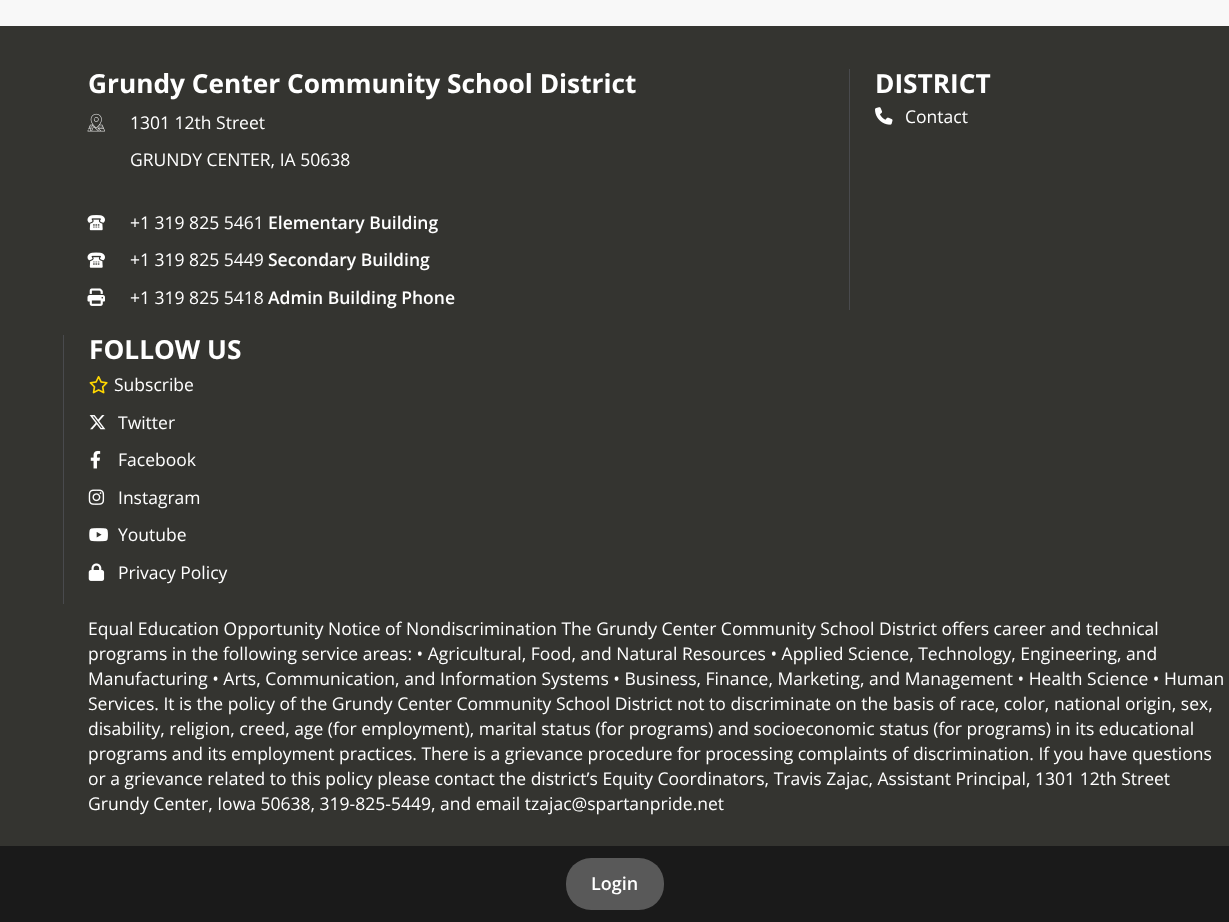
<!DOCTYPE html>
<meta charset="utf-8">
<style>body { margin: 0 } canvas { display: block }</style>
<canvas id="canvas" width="1229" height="922"></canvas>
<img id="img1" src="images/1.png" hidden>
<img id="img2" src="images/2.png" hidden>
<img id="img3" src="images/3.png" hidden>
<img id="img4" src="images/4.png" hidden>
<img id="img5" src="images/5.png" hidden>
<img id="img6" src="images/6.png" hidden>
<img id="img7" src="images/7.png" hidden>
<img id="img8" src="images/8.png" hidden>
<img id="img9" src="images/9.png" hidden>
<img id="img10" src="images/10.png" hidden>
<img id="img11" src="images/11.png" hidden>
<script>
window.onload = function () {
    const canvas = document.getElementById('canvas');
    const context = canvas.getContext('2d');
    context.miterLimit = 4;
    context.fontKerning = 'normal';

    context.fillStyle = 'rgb(248, 248, 248)';
    context.fillRect(0, 0, 1229, 922);
    context.fillStyle = 'rgb(52, 52, 48)';
    context.fillRect(0, 26, 1229, 820);
    context.drawImage(document.getElementById('img1'), 87, 113, 18, 19);
    context.drawImage(document.getElementById('img2'), 87, 215, 18, 16);
    context.drawImage(document.getElementById('img3'), 87, 252, 18, 16);
    context.drawImage(document.getElementById('img4'), 87, 288, 18, 18);
    context.fillStyle = 'rgb(73, 74, 77)';
    context.fillRect(849, 69, 1, 241);
    context.drawImage(document.getElementById('img5'), 875, 107, 18, 18);
    context.fillRect(63, 335, 1, 269);
    context.drawImage(document.getElementById('img6'), 89, 376, 19, 18);
    context.drawImage(document.getElementById('img7'), 89, 415, 17, 15);
    context.drawImage(document.getElementById('img8'), 90, 450, 11, 19);
    context.drawImage(document.getElementById('img9'), 88, 489, 17, 16);
    context.drawImage(document.getElementById('img10'), 89, 528, 19, 14);
    context.drawImage(document.getElementById('img11'), 88, 563, 17, 18);
    context.fillStyle = 'rgb(26, 26, 26)';
    context.fillRect(0, 846, 1229, 76);
    context.fillStyle = 'rgb(89, 89, 89)';
    context.beginPath();
    context.roundRect(566, 858, 98, 52, 25);
    context.fill();
    context.font = 'bold 26.25px Open Sans';
    context.fillStyle = 'rgb(255, 255, 255)';
    context.fillText('Grundy Center Community School District', 88, 93);
    context.font = '17.5px Open Sans';
    context.fillText('1301 12th Street', 130, 129);
    context.fillText('GRUNDY CENTER, IA 50638', 130, 166);
    context.fillText('+1 319 825 5461', 130, 229);
    context.font = '600 17.5px Open Sans';
    context.fillText('Elementary Building', 268, 229);
    context.font = '17.5px Open Sans';
    context.fillText('+1 319 825 5449', 130, 266);
    context.font = '600 17.5px Open Sans';
    context.fillText('Secondary Building', 268, 266);
    context.font = '17.5px Open Sans';
    context.fillText('+1 319 825 5418', 130, 304);
    context.font = '600 17.5px Open Sans';
    context.fillText('Admin Building Phone', 268, 304);
    context.font = 'bold 26.25px Open Sans';
    context.fillText('DISTRICT', 875, 93);
    context.font = '17.5px Open Sans';
    context.fillText('Contact', 905, 123);
    context.font = 'bold 26.25px Open Sans';
    context.fillText('FOLLOW US', 89, 359);
    context.font = '17.5px Open Sans';
    context.fillText('Subscribe', 114, 391);
    context.fillText('Twitter', 118, 429);
    context.fillText('Facebook', 118, 466);
    context.fillText('Instagram', 118, 504);
    context.fillText('Youtube', 118, 541);
    context.fillText('Privacy Policy', 118, 579);
    context.fillText('Equal Education Opportunity Notice of Nondiscrimination The Grundy Center Community School District offers career and technical', 88, 635);
    context.fillText('programs in the following service areas: • Agricultural, Food, and Natural Resources • Applied Science, Technology, Engineering, and', 88, 660);
    context.fillText('Manufacturing • Arts, Communication, and Information Systems • Business, Finance, Marketing, and Management • Health Science • Human', 88, 685);
    context.fillText('Services. It is the policy of the Grundy Center Community School District not to discriminate on the basis of race, color, national origin, sex,', 88, 710);
    context.fillText('disability, religion, creed, age (for employment), marital status (for programs) and socioeconomic status (for programs) in its educational', 88, 735);
    context.fillText('programs and its employment practices. There is a grievance procedure for processing complaints of discrimination. If you have questions', 88, 760);
    context.fillText('or a grievance related to this policy please contact the district’s Equity Coordinators, Travis Zajac, Assistant Principal, 1301 12th Street', 88, 785);
    context.fillText('Grundy Center, Iowa 50638, 319-825-5449, and email tzajac@spartanpride.net', 88, 810);
    context.font = '600 18px Open Sans';
    context.fillText('Login', 591, 890);
};
</script>
